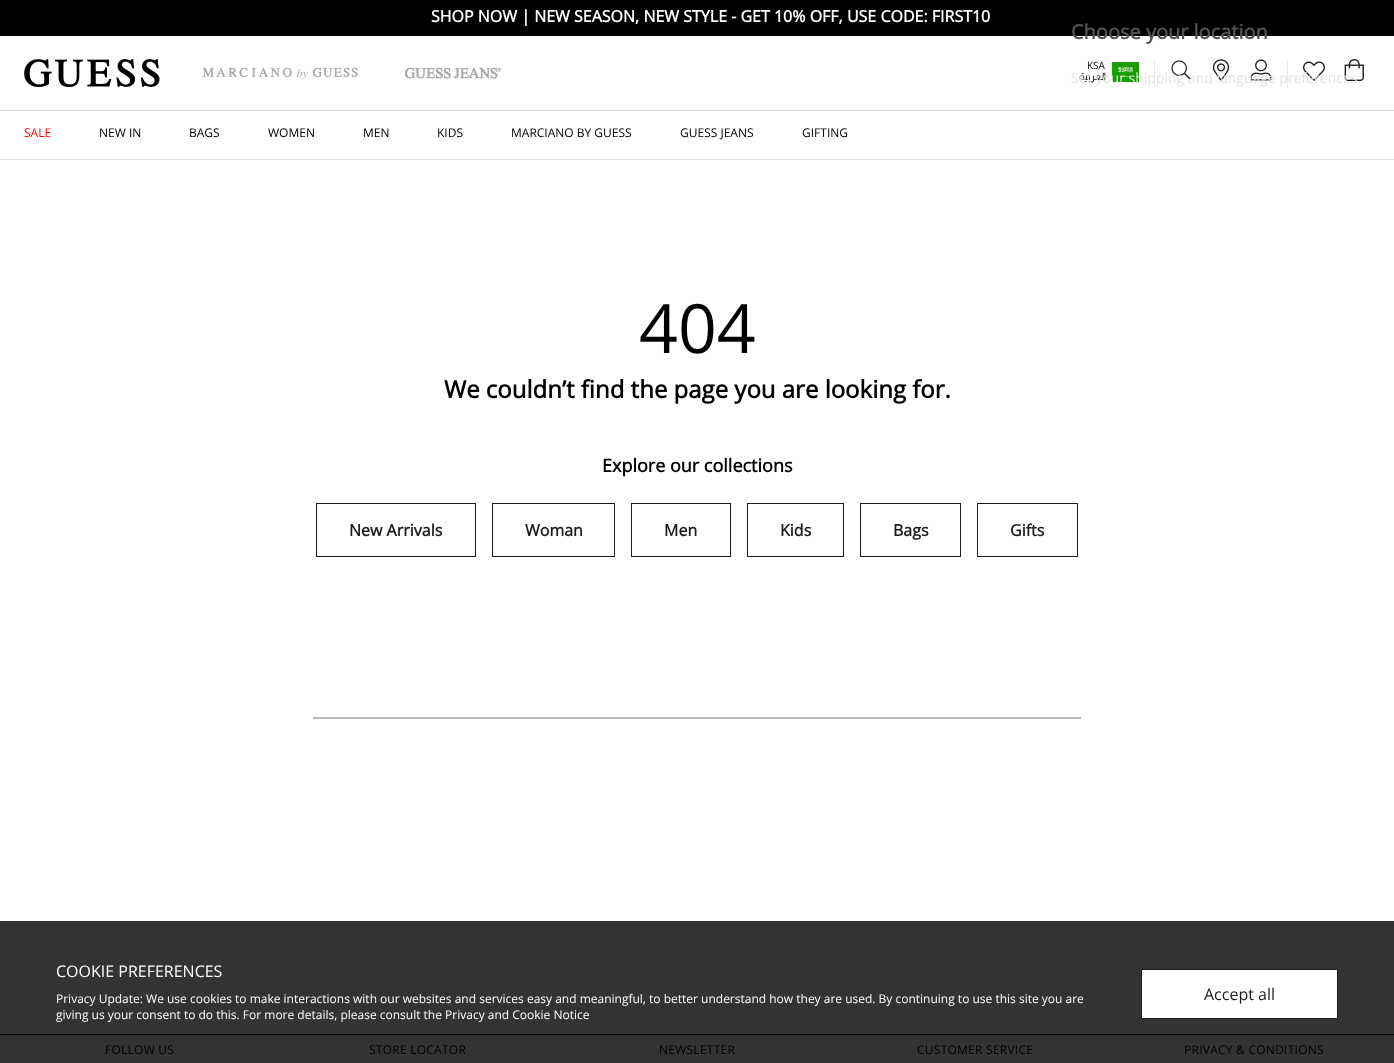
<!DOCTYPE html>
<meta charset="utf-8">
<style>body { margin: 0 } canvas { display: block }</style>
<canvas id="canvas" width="1394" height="1063"></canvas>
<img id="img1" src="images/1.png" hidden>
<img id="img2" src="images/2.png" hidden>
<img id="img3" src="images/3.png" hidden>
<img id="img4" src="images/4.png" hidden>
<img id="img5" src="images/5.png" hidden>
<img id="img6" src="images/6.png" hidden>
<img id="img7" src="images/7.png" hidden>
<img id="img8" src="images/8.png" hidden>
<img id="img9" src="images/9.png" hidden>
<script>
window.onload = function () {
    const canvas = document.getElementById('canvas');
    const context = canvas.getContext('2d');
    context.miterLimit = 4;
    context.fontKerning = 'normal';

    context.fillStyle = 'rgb(255, 255, 255)';
    context.fillRect(0, 0, 1394, 1063);
    context.fillStyle = 'rgb(51, 51, 51)';
    context.fillRect(0, 921, 1394, 142);
    context.fillStyle = 'rgb(220, 220, 220)';
    context.fillRect(0, 159, 1394, 1);
    context.fillStyle = 'rgb(0, 0, 0)';
    context.fillRect(0, 0, 1394, 36);
    context.fillStyle = 'rgb(220, 220, 220)';
    context.fillRect(0, 110, 1394, 1);
    context.drawImage(document.getElementById('img1'), 24, 59, 136, 28);
    context.drawImage(document.getElementById('img2'), 202, 67, 156, 13);
    context.drawImage(document.getElementById('img3'), 404, 67, 97, 12);
    context.drawImage(document.getElementById('img4'), 1112, 62, 27, 20);
    context.fillStyle = 'rgb(235, 235, 235)';
    context.fillRect(1154, 59, 1, 29);
    context.drawImage(document.getElementById('img5'), 1171, 60, 20, 20);
    context.drawImage(document.getElementById('img6'), 1212, 59, 18, 22);
    context.drawImage(document.getElementById('img7'), 1250, 59, 22, 22);
    context.fillRect(1287, 59, 1, 29);
    context.drawImage(document.getElementById('img8'), 1303, 61, 22, 20);
    context.drawImage(document.getElementById('img9'), 1344, 59, 20, 22);
    context.fillStyle = 'rgb(255, 255, 255)';
    context.beginPath();
    context.rect(1141.5, 969.5, 196, 49);
    context.fill();
    context.strokeStyle = 'rgb(29, 29, 29)';
    context.stroke();
    context.strokeRect(316.5, 503.5, 159, 53);
    context.strokeRect(492.5, 503.5, 122, 53);
    context.strokeRect(631.5, 503.5, 99, 53);
    context.strokeRect(747.5, 503.5, 96, 53);
    context.strokeRect(860.5, 503.5, 100, 53);
    context.strokeRect(977.5, 503.5, 100, 53);
    context.fillStyle = 'rgb(184, 184, 184)';
    context.fillRect(313, 717, 768, 2);
    context.fillStyle = 'rgb(0, 0, 0)';
    context.fillRect(0, 1034, 1394, 1);
    context.font = 'bold 16px Open Sans';
    context.fillStyle = 'rgb(255, 255, 255)';
    context.fillText('SHOP NOW | NEW SEASON, NEW STYLE - GET 10% OFF, USE CODE: FIRST10', 431, 22);
    context.font = '10px Open Sans';
    context.fillStyle = 'rgb(0, 0, 0)';
    context.fillText('KSA', 1087, 69);
    context.letterSpacing = '0.25px';
    context.direction = 'rtl';
    context.font = '10px Almarai';
    context.fillText('العربية', 1106, 80);
    context.letterSpacing = '0px';
    context.direction = 'ltr';
    context.font = '12px Open Sans';
    context.fillStyle = 'rgb(255, 0, 0)';
    context.fillText('SALE', 24, 137);
    context.fillStyle = 'rgb(0, 0, 0)';
    context.fillText('NEW IN', 99, 137);
    context.fillText('BAGS', 189, 137);
    context.fillText('WOMEN', 268, 137);
    context.fillText('MEN', 363, 137);
    context.fillText('KIDS', 437, 137);
    context.fillText('MARCIANO BY GUESS', 511, 137);
    context.fillText('GUESS JEANS', 680, 137);
    context.fillText('GIFTING', 802, 137);
    context.font = '16px Open Sans';
    context.fillStyle = 'rgb(255, 255, 255)';
    context.fillText('COOKIE PREFERENCES', 56, 977);
    context.font = '12px Open Sans';
    context.fillText('Privacy Update: We use cookies to make interactions with our websites and services easy and meaningful, to better understand how they are used. By continuing to use this site you are', 56, 1003);
    context.fillText('giving us your consent to do this. For more details, please consult the Privacy and Cookie Notice', 56, 1019);
    context.font = '16px Open Sans';
    context.fillStyle = 'rgb(29, 29, 29)';
    context.fillText('Accept all', 1204, 1000);
    context.font = '68px Open Sans';
    context.fillStyle = 'rgb(0, 0, 0)';
    context.fillText('404', 639, 353);
    context.font = 'bold 24px Open Sans';
    context.fillText('We couldn’t find the page you are looking for.', 444, 398);
    context.font = 'bold 18px Open Sans';
    context.fillText('Explore our collections', 602, 472);
    context.font = 'bold 16px Open Sans';
    context.fillStyle = 'rgb(29, 29, 29)';
    context.fillText('New Arrivals', 349, 536);
    context.fillText('Woman', 525, 536);
    context.fillText('Men', 664, 536);
    context.fillText('Kids', 780, 536);
    context.fillText('Bags', 893, 536);
    context.fillText('Gifts', 1010, 536);
    context.letterSpacing = '0.25px';
    context.font = '12px Open Sans';
    context.fillStyle = 'rgb(0, 0, 0)';
    context.fillText('FOLLOW US', 105, 1054);
    context.fillText('STORE LOCATOR', 369, 1054);
    context.fillText('NEWSLETTER', 659, 1054);
    context.fillText('CUSTOMER SERVICE', 917, 1054);
    context.fillText('PRIVACY & CONDITIONS', 1184, 1054);
    context.letterSpacing = '0px';
    context.font = 'bold 20px Open Sans';
    context.fillStyle = 'rgb(82, 82, 82)';
    context.fillText('Choose your location', 1071, 39);
    context.font = '14px Open Sans';
    context.fillStyle = 'rgb(224, 232, 222)';
    context.fillText('Set your shipping and language preferences:', 1071, 83);
};
</script>
